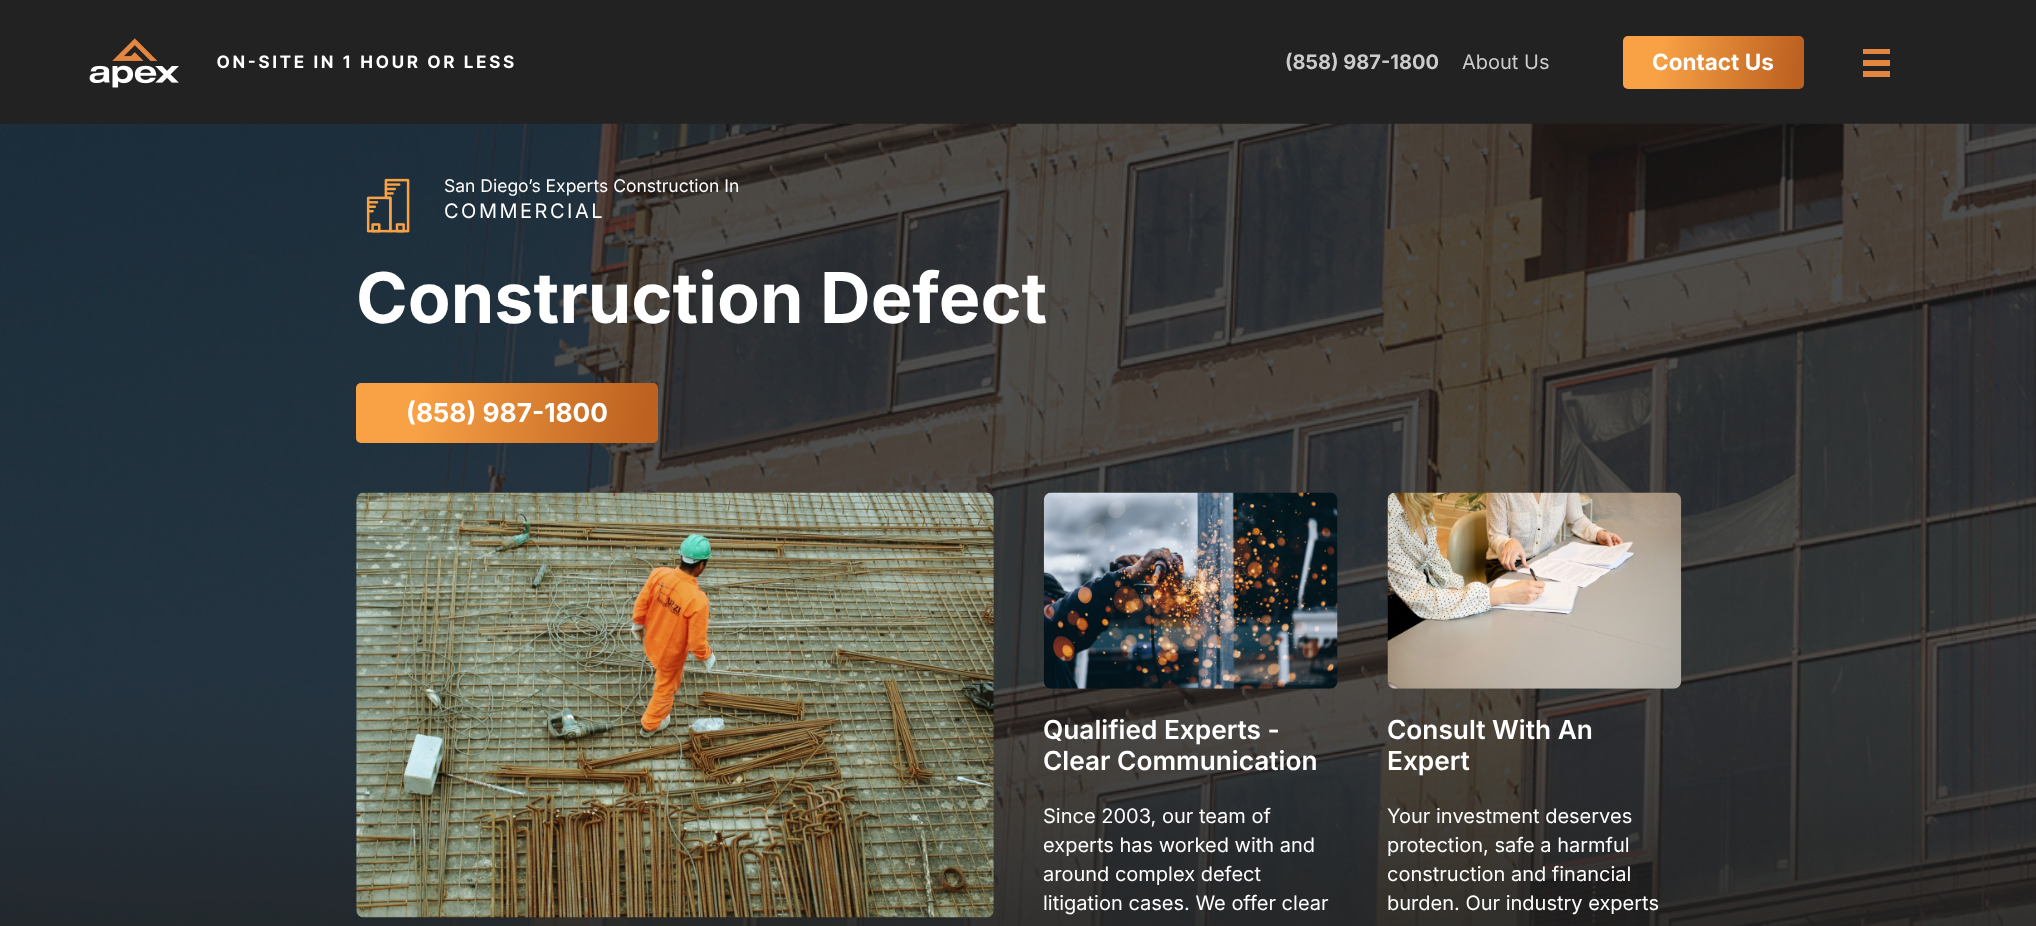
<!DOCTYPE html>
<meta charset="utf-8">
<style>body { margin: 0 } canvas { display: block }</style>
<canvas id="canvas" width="2036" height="926"></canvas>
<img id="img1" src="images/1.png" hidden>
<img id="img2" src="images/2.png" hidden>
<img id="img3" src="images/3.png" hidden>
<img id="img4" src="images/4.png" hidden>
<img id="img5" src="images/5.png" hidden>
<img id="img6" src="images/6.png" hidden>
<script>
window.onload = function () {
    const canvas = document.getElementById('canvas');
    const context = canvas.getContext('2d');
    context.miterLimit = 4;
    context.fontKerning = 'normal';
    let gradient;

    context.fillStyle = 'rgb(34, 34, 34)';
    context.fillRect(0, 0, 2036, 926);
    context.drawImage(document.getElementById('img1'), 89, 38, 425, 50);
    gradient = context.createLinearGradient(1806, 77, 1621, 48);
    gradient.addColorStop(0.05, 'rgb(188, 97, 32)');
    gradient.addColorStop(0.79, 'rgb(248, 161, 69)');
    context.fillStyle = gradient;
    context.beginPath();
    context.roundRect(1623, 36, 181, 53, 5);
    context.fill();
    context.fillStyle = 'rgb(228, 133, 64)';
    context.fillRect(1863, 49, 27, 5);
    context.fillRect(1863, 60, 27, 6);
    context.fillRect(1863, 71, 27, 6);
    context.drawImage(document.getElementById('img2'), 0, 123, 2036, 803);
    context.drawImage(document.getElementById('img3'), 366, 178, 44, 55);
    gradient = context.createLinearGradient(659, 436, 355, 389);
    gradient.addColorStop(0.05, 'rgb(188, 97, 32)');
    gradient.addColorStop(0.79, 'rgb(248, 161, 69)');
    context.fillStyle = gradient;
    context.beginPath();
    context.roundRect(356, 383, 302, 60, 5);
    context.fill();
    context.drawImage(document.getElementById('img4'), 356, 492, 638, 426);
    context.drawImage(document.getElementById('img5'), 1043, 492, 295, 197);
    context.drawImage(document.getElementById('img6'), 1387, 492, 295, 197);
    context.font = 'bold 20px Inter';
    context.fillStyle = 'rgb(204, 204, 204)';
    context.fillText('(858) 987-1800', 1285, 69);
    context.font = '20px Inter';
    context.fillText('About Us', 1462, 69);
    context.font = 'bold 22.5px Inter';
    context.fillStyle = 'rgb(255, 255, 255)';
    context.fillText('Contact Us', 1652, 70);
    context.font = '17.5px Inter';
    context.fillText('San Diego’s Experts Construction In', 444, 192);
    context.letterSpacing = '2.5px';
    context.font = '20px Inter';
    context.fillText('COMMERCIAL', 444, 218);
    context.letterSpacing = '0px';
    context.font = 'bold 70px Inter';
    context.fillText('Construction Defect', 356, 323);
    context.font = 'bold 26.25px Inter';
    context.fillText('(858) 987-1800', 406, 422);
    context.font = '600 26.25px Inter';
    context.fillText('Qualified Experts -', 1043, 739);
    context.fillText('Clear Communication', 1043, 770);
    context.font = '20px Inter';
    context.fillText('Since 2003, our team of', 1043, 823);
    context.fillText('experts has worked with and', 1043, 852);
    context.fillText('around complex defect', 1043, 881);
    context.fillText('litigation cases. We offer clear', 1043, 910);
    context.font = '600 26.25px Inter';
    context.fillText('Consult With An', 1387, 739);
    context.fillText('Expert', 1387, 770);
    context.font = '20px Inter';
    context.fillText('Your investment deserves', 1387, 823);
    context.fillText('protection, safe a harmful', 1387, 852);
    context.fillText('construction and financial', 1387, 881);
    context.fillText('burden. Our industry experts', 1387, 910);
};
</script>
